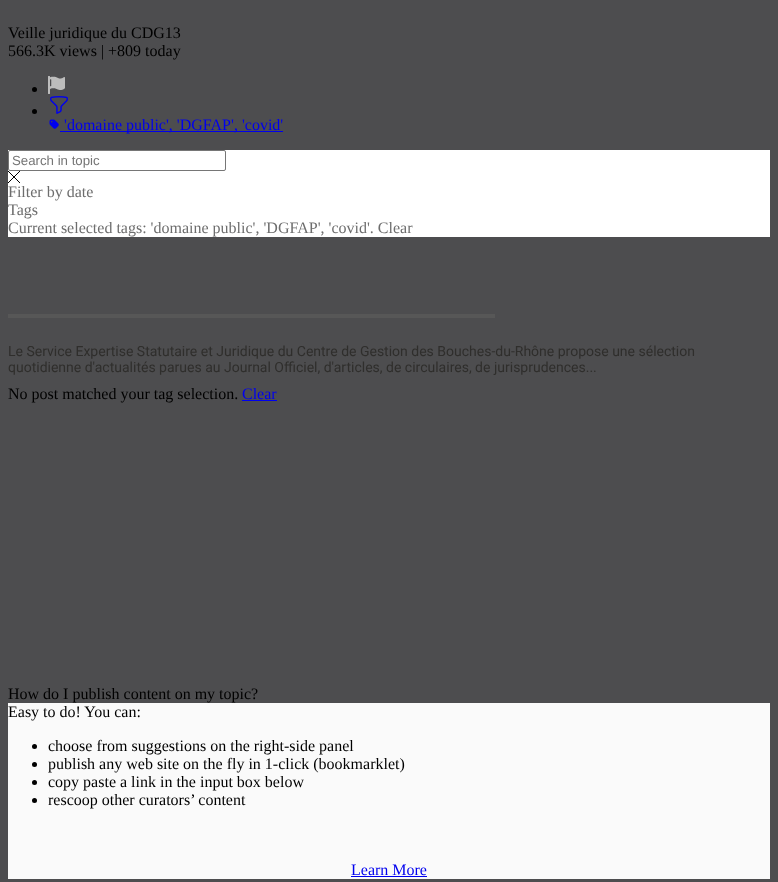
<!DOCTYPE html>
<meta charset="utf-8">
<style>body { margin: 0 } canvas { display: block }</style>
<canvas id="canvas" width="778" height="882"></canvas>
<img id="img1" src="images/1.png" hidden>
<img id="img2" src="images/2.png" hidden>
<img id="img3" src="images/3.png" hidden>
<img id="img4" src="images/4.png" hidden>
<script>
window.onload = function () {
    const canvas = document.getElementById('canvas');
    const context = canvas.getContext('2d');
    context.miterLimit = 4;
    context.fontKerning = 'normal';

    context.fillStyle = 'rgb(77, 77, 79)';
    context.fillRect(0, 0, 778, 882);
    context.fillStyle = 'rgb(0, 0, 0)';
    context.beginPath();
    context.arc(34.5, 89.5, 2.5, 0, 2 * Math.PI);
    context.fill();
    context.drawImage(document.getElementById('img1'), 48, 76, 17, 18);
    context.beginPath();
    context.arc(34.5, 111.5, 2.5, 0, 2 * Math.PI);
    context.fill();
    context.drawImage(document.getElementById('img2'), 50, 96, 18, 18);
    context.drawImage(document.getElementById('img3'), 49, 119, 10, 10);
    context.fillStyle = 'rgb(0, 0, 238)';
    context.fillRect(60, 131, 223, 1);
    context.fillStyle = 'rgb(255, 255, 255)';
    context.fillRect(8, 150, 762, 87);
    context.beginPath();
    context.roundRect(8.5, 150.5, 217, 20, 1.5);
    context.strokeStyle = 'rgb(118, 118, 118)';
    context.stroke();
    context.drawImage(document.getElementById('img4'), 8, 171, 12, 12);
    context.fillStyle = 'rgb(87, 87, 87)';
    context.fillRect(8, 314, 487, 4);
    context.fillStyle = 'rgb(0, 0, 238)';
    context.fillRect(242, 400, 35, 1);
    context.fillStyle = 'rgb(250, 250, 250)';
    context.fillRect(8, 703, 762, 176);
    context.fillStyle = 'rgb(0, 0, 0)';
    context.beginPath();
    context.arc(34.5, 746.5, 2.5, 0, 2 * Math.PI);
    context.fill();
    context.beginPath();
    context.arc(34.5, 764.5, 2.5, 0, 2 * Math.PI);
    context.fill();
    context.beginPath();
    context.arc(34.5, 782.5, 2.5, 0, 2 * Math.PI);
    context.fill();
    context.beginPath();
    context.arc(34.5, 800.5, 2.5, 0, 2 * Math.PI);
    context.fill();
    context.fillStyle = 'rgb(0, 0, 238)';
    context.fillRect(351, 876, 76, 1);
    context.font = '16px Liberation Serif';
    context.fillStyle = 'rgb(0, 0, 0)';
    context.fillText('Veille juridique du CDG13', 8, 38);
    context.fillText('566.3K views | +809 today', 8, 56);
    context.fillStyle = 'rgb(0, 0, 238)';
    context.fillText('\'domaine public\', \'DGFAP\', \'covid\'', 64, 130);
    context.font = '13.25px Liberation Sans';
    context.fillStyle = 'rgb(117, 117, 117)';
    context.fillText('Search in topic', 12, 165);
    context.font = '16px Liberation Serif';
    context.fillStyle = 'rgb(109, 109, 109)';
    context.fillText('Filter by date', 8, 197);
    context.fillText('Tags', 8, 215);
    context.fillText('Current selected tags: \'domaine public\', \'DGFAP\', \'covid\'. Clear', 8, 233);
    context.font = '14px Roboto';
    context.fillStyle = 'rgb(47, 46, 44)';
    context.fillText('Le Service Expertise Statutaire et Juridique du Centre de Gestion des Bouches-du-Rhône propose une sélection', 8, 356);
    context.fillText('quotidienne d\'actualités parues au Journal Officiel, d\'articles, de circulaires, de jurisprudences...', 8, 372);
    context.font = '16px Liberation Serif';
    context.fillStyle = 'rgb(0, 0, 0)';
    context.fillText('No post matched your tag selection.', 8, 399);
    context.fillStyle = 'rgb(0, 0, 238)';
    context.fillText('Clear', 242, 399);
    context.fillStyle = 'rgb(0, 0, 0)';
    context.fillText('How do I publish content on my topic?', 8, 699);
    context.fillText('Easy to do! You can:', 8, 717);
    context.fillText('choose from suggestions on the right-side panel', 48, 751);
    context.fillText('publish any web site on the fly in 1-click (bookmarklet)', 48, 769);
    context.fillText('copy paste a link in the input box below', 48, 787);
    context.fillText('rescoop other curators’ content', 48, 805);
    context.fillStyle = 'rgb(0, 0, 238)';
    context.fillText('Learn More', 351, 875);
};
</script>
